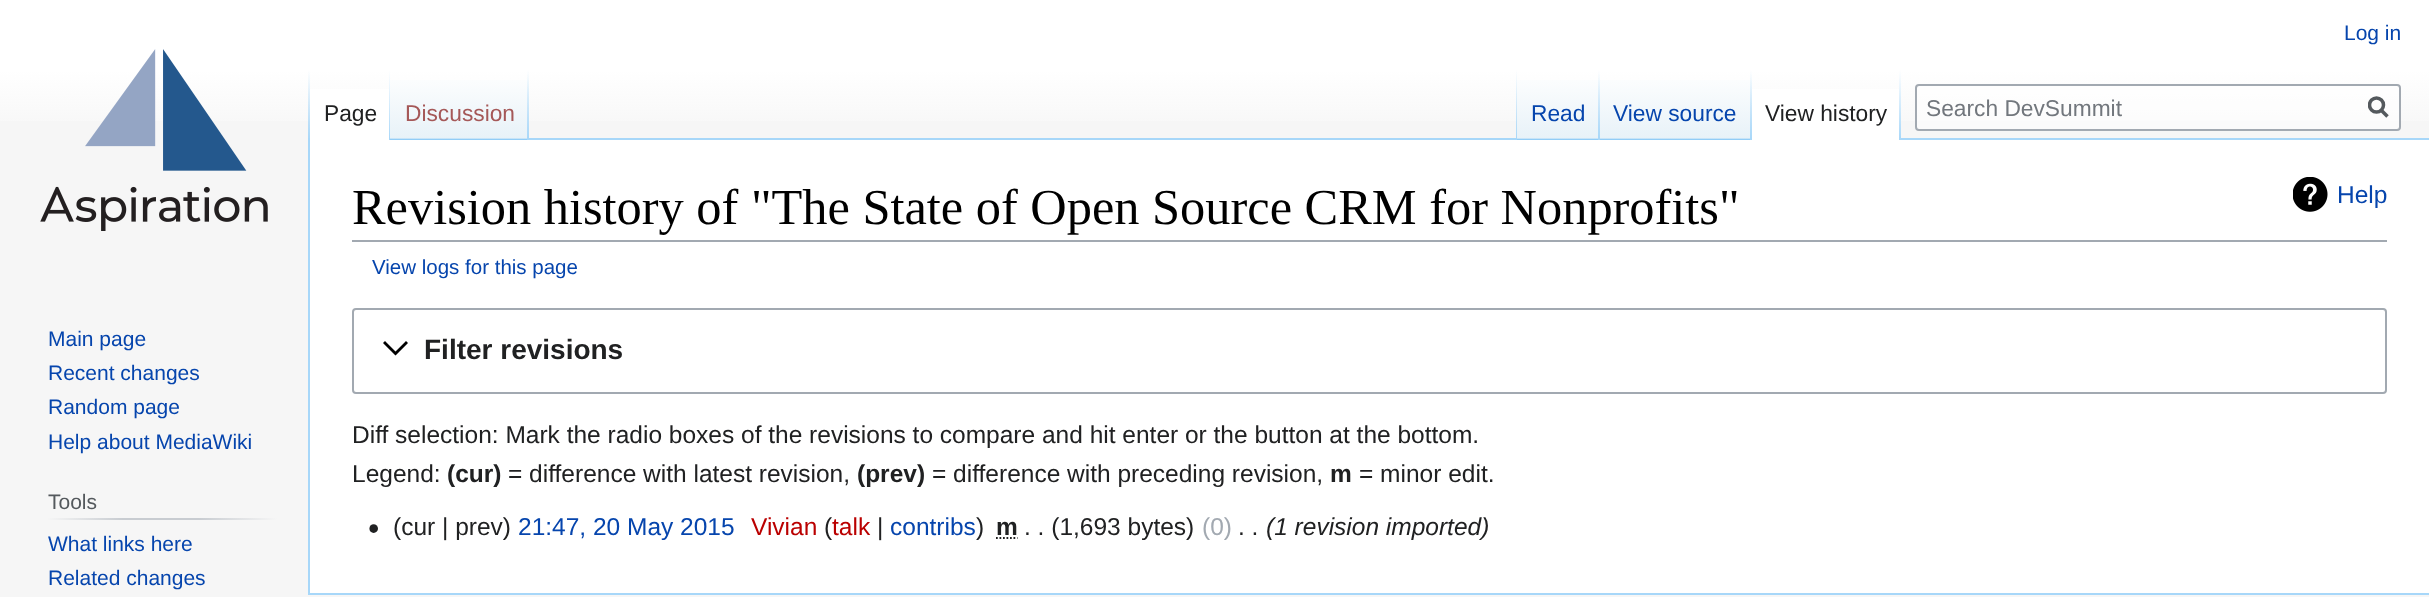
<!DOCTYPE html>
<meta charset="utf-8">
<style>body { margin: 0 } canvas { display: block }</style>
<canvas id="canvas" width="2429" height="597"></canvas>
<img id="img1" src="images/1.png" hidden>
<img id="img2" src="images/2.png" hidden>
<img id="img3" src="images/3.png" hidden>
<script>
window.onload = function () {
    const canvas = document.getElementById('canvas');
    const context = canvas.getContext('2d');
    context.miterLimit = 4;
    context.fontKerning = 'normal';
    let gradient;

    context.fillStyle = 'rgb(246, 246, 246)';
    context.fillRect(0, 0, 2429, 597);
    gradient = context.createLinearGradient(1215, 0, 1215, 140);
    gradient.addColorStop(0.5, 'rgb(255, 255, 255)');
    gradient.addColorStop(1, 'rgb(246, 246, 246)');
    context.fillStyle = gradient;
    context.fillRect(0, 0, 2429, 121);
    context.fillStyle = 'rgb(167, 215, 249)';
    context.fillRect(308, 593, 2121, 2);
    context.fillRect(308, 138, 2, 457);
    gradient = context.createLinearGradient(309, 70, 309, 140);
    gradient.addColorStop(0, 'rgba(167, 215, 249, 0)');
    gradient.addColorStop(1, 'rgb(167, 215, 249)');
    context.fillStyle = gradient;
    context.fillRect(308, 70, 2, 70);
    context.fillStyle = 'rgb(255, 255, 255)';
    context.fillRect(310, 89, 79, 51);
    gradient = context.createLinearGradient(389, 70, 389, 140);
    gradient.addColorStop(0, 'rgb(255, 255, 255)');
    gradient.addColorStop(1, 'rgb(167, 215, 249)');
    context.fillStyle = gradient;
    context.fillRect(389, 70, 1, 70);
    gradient = context.createLinearGradient(459, 140, 459, 70);
    gradient.addColorStop(0, 'rgb(119, 193, 246)');
    gradient.addColorStop(0.03, 'rgb(232, 242, 248)');
    gradient.addColorStop(1, 'rgb(255, 255, 255)');
    context.fillStyle = gradient;
    context.fillRect(390, 80, 139, 60);
    gradient = context.createLinearGradient(528, 70, 528, 140);
    gradient.addColorStop(0, 'rgba(167, 215, 249, 0)');
    gradient.addColorStop(1, 'rgb(167, 215, 249)');
    context.fillStyle = gradient;
    context.fillRect(527, 70, 2, 70);
    context.fillStyle = 'rgb(167, 215, 249)';
    context.fillRect(529, 138, 1900, 2);
    gradient = context.createLinearGradient(1516, 70, 1516, 140);
    gradient.addColorStop(0, 'rgba(167, 215, 249, 0)');
    gradient.addColorStop(1, 'rgb(167, 215, 249)');
    context.fillStyle = gradient;
    context.fillRect(1516, 70, 1, 70);
    gradient = context.createLinearGradient(1558, 140, 1558, 70);
    gradient.addColorStop(0, 'rgb(119, 193, 246)');
    gradient.addColorStop(0.03, 'rgb(232, 242, 248)');
    gradient.addColorStop(1, 'rgb(255, 255, 255)');
    context.fillStyle = gradient;
    context.fillRect(1517, 80, 83, 60);
    gradient = context.createLinearGradient(1599, 70, 1599, 140);
    gradient.addColorStop(0, 'rgba(167, 215, 249, 0)');
    gradient.addColorStop(1, 'rgb(167, 215, 249)');
    context.fillStyle = gradient;
    context.fillRect(1598, 70, 2, 70);
    gradient = context.createLinearGradient(1676, 140, 1676, 70);
    gradient.addColorStop(0, 'rgb(119, 193, 246)');
    gradient.addColorStop(0.03, 'rgb(232, 242, 248)');
    gradient.addColorStop(1, 'rgb(255, 255, 255)');
    context.fillStyle = gradient;
    context.fillRect(1600, 80, 152, 60);
    gradient = context.createLinearGradient(1751, 70, 1751, 140);
    gradient.addColorStop(0, 'rgba(167, 215, 249, 0)');
    gradient.addColorStop(1, 'rgb(167, 215, 249)');
    context.fillStyle = gradient;
    context.fillRect(1750, 70, 2, 70);
    context.fillStyle = 'rgb(255, 255, 255)';
    context.fillRect(1752, 89, 147, 51);
    gradient = context.createLinearGradient(1900, 70, 1900, 140);
    gradient.addColorStop(0, 'rgb(255, 255, 255)');
    gradient.addColorStop(1, 'rgb(167, 215, 249)');
    context.fillStyle = gradient;
    context.fillRect(1899, 70, 2, 70);
    context.fillStyle = 'rgba(255, 255, 255, 0.5)';
    context.beginPath();
    context.roundRect(1916, 85, 484, 45, 3);
    context.fill();
    context.strokeStyle = 'rgb(162, 169, 177)';
    context.lineWidth = 2;
    context.stroke();
    context.beginPath();
    context.moveTo(2387.5, 116.5);
    context.lineTo(2380.5, 109.5);
    context.strokeStyle = 'rgb(84, 89, 93)';
    context.lineWidth = 3.5;
    context.stroke();
    context.save();
    context.beginPath();
    context.rect(2368, 96, 21, 23);
    context.clip();
    context.beginPath();
    context.arc(2376.5, 105, 7, 0, 2 * Math.PI);
    context.stroke();
    context.restore();
    context.drawImage(document.getElementById('img1'), 40, 49, 228, 182);
    gradient = context.createLinearGradient(47, 519, 277, 519);
    gradient.addColorStop(0, 'rgb(246, 246, 246)');
    gradient.addColorStop(0.33, 'rgb(200, 204, 209)');
    gradient.addColorStop(0.66, 'rgb(200, 204, 209)');
    gradient.addColorStop(1, 'rgb(246, 246, 246)');
    context.fillStyle = gradient;
    context.fillRect(47, 518, 230, 2);
    context.fillStyle = 'rgb(255, 255, 255)';
    context.fillRect(310, 140, 2119, 453);
    context.fillStyle = 'rgb(162, 169, 177)';
    context.fillRect(352, 240, 2035, 2);
    context.drawImage(document.getElementById('img2'), 2293, 177, 35, 35);
    context.beginPath();
    context.roundRect(353, 309, 2033, 84, 3);
    context.strokeStyle = 'rgb(162, 169, 177)';
    context.lineWidth = 2;
    context.stroke();
    context.fillStyle = 'rgb(0, 0, 0)';
    context.beginPath();
    context.moveTo(406, 341);
    context.lineTo(395.5, 351.5);
    context.lineTo(385, 341);
    context.lineTo(383, 343);
    context.lineTo(395.5, 355.5);
    context.lineTo(408, 343);
    context.closePath();
    context.fill();
    context.drawImage(document.getElementById('img3'), 369, 524, 9, 9);
    context.beginPath();
    context.moveTo(996, 538);
    context.lineTo(1017.5, 538);
    context.strokeStyle = 'rgb(32, 33, 34)';
    context.lineWidth = 1.8;
    context.setLineDash([1.75, 1.75]);
    context.stroke();
    context.font = '21px Liberation Sans';
    context.fillStyle = 'rgb(6, 69, 173)';
    context.fillText('Log in', 2344, 40);
    context.font = '22.75px Liberation Sans';
    context.fillStyle = 'rgb(32, 33, 34)';
    context.fillText('Page', 324, 121);
    context.fillStyle = 'rgb(165, 88, 88)';
    context.fillText('Discussion', 405, 121);
    context.fillStyle = 'rgb(6, 69, 173)';
    context.fillText('Read', 1531, 121);
    context.fillText('View source', 1613, 121);
    context.fillStyle = 'rgb(32, 33, 34)';
    context.fillText('View history', 1765, 121);
    context.fillStyle = 'rgb(114, 119, 125)';
    context.fillText('Search DevSummit', 1926, 116);
    context.font = '21px Liberation Sans';
    context.fillStyle = 'rgb(6, 69, 173)';
    context.fillText('Main page', 48, 346);
    context.fillText('Recent changes', 48, 380);
    context.fillText('Random page', 48, 414);
    context.fillText('Help about MediaWiki', 48, 449);
    context.fillStyle = 'rgb(84, 89, 93)';
    context.fillText('Tools', 48, 509);
    context.fillStyle = 'rgb(6, 69, 173)';
    context.fillText('What links here', 48, 551);
    context.fillText('Related changes', 48, 585);
    context.font = '50.4px Liberation Serif';
    context.fillStyle = 'rgb(0, 0, 0)';
    context.fillText('Revision history of "The State of Open Source CRM for Nonprofits"', 352, 224);
    context.font = '24.5px Liberation Sans';
    context.fillStyle = 'rgb(6, 69, 173)';
    context.fillText('Help', 2337, 203);
    context.font = '20.5px Liberation Sans';
    context.fillText('View logs for this page', 372, 274);
    context.font = 'bold 28px Liberation Sans';
    context.fillStyle = 'rgb(32, 33, 34)';
    context.fillText('Filter revisions', 424, 359);
    context.font = '24.5px Liberation Sans';
    context.fillText('Diff selection: Mark the radio boxes of the revisions to compare and hit enter or the button at the bottom.', 352, 443);
    context.fillText('Legend:', 352, 482);
    context.font = 'bold 24.5px Liberation Sans';
    context.fillText('(cur)', 447, 482);
    context.font = '24.5px Liberation Sans';
    context.fillText('= difference with latest revision,', 508, 482);
    context.font = 'bold 24.5px Liberation Sans';
    context.fillText('(prev)', 857, 482);
    context.font = '24.5px Liberation Sans';
    context.fillText('= difference with preceding revision,', 932, 482);
    context.font = 'bold 24.5px Liberation Sans';
    context.fillText('m', 1330, 482);
    context.font = '24.5px Liberation Sans';
    context.fillText('= minor edit.', 1359, 482);
    context.fillText('(cur | prev)', 393, 535);
    context.fillStyle = 'rgb(6, 69, 173)';
    context.fillText('21:47, 20 May 2015', 518, 535);
    context.fillStyle = 'rgb(186, 0, 0)';
    context.fillText('Vivian', 751, 535);
    context.fillStyle = 'rgb(32, 33, 34)';
    context.fillText('(', 824, 535);
    context.fillStyle = 'rgb(186, 0, 0)';
    context.fillText('talk', 832, 535);
    context.fillStyle = 'rgb(32, 33, 34)';
    context.fillText('|', 877, 535);
    context.fillStyle = 'rgb(6, 69, 173)';
    context.fillText('contribs', 890, 535);
    context.fillStyle = 'rgb(32, 33, 34)';
    context.fillText(')', 976, 535);
    context.font = 'bold 24.5px Liberation Sans';
    context.fillText('m', 996, 535);
    context.font = '24.5px Liberation Sans';
    context.fillText('. . (1,693 bytes)', 1024, 535);
    context.fillStyle = 'rgb(162, 169, 177)';
    context.fillText('(0)', 1202, 535);
    context.fillStyle = 'rgb(32, 33, 34)';
    context.fillText('. .', 1238, 535);
    context.font = 'italic 24.5px Liberation Sans';
    context.fillText('(1 revision imported)', 1266, 535);
};
</script>
